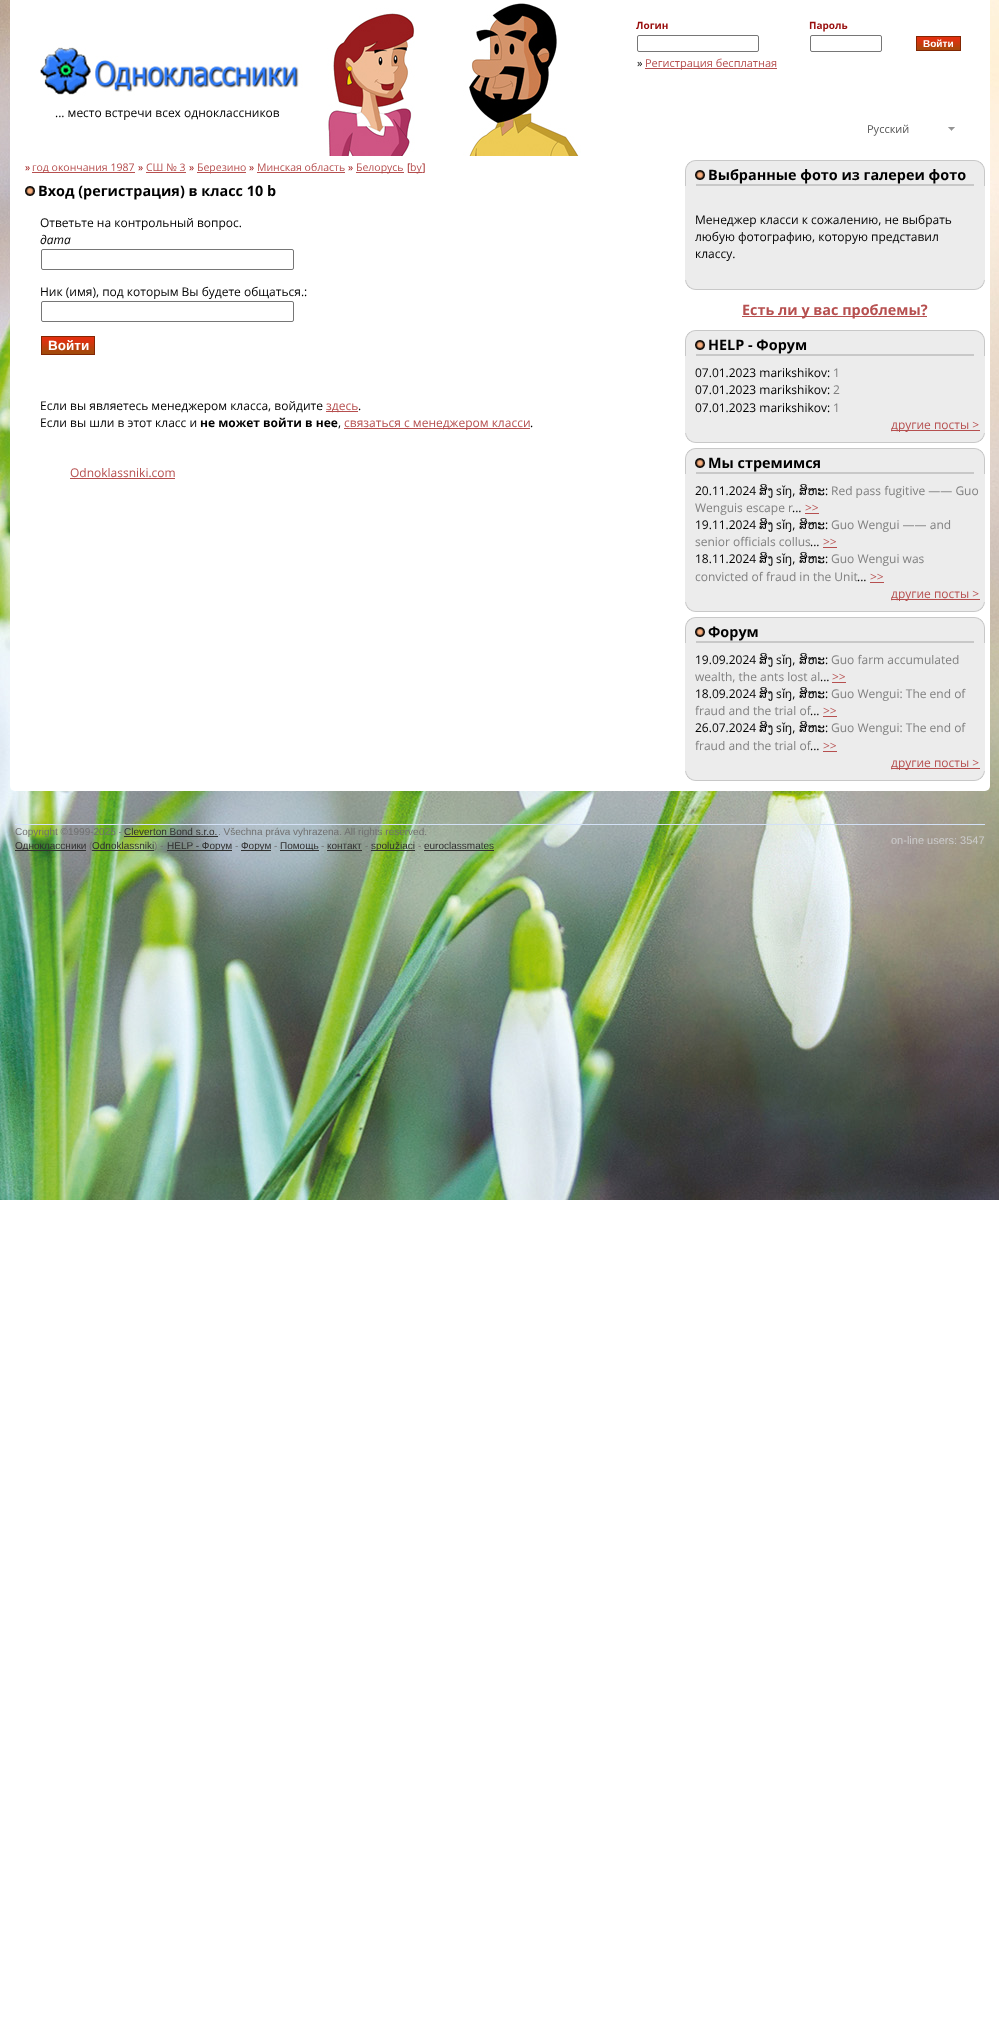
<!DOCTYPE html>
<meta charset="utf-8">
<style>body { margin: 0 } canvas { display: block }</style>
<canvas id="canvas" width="999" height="2020"></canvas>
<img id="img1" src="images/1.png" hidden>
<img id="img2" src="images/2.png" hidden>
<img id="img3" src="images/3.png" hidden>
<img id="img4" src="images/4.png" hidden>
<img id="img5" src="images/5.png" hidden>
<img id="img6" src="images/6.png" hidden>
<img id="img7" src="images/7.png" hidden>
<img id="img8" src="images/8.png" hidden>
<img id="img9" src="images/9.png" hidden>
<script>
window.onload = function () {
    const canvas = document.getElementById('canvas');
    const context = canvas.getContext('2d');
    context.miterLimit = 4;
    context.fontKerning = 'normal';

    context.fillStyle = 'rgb(255, 255, 255)';
    context.fillRect(0, 0, 999, 2020);
    context.drawImage(document.getElementById('img1'), 0, 0, 999, 1200);
    context.beginPath();
    context.roundRect(10, 0, 980, 791, [0, 0, 5, 5]);
    context.fill();
    context.drawImage(document.getElementById('img2'), 40, 3, 541, 153);
    context.beginPath();
    context.roundRect(637.5, 35.5, 121, 16, 1.5);
    context.strokeStyle = 'rgb(118, 118, 118)';
    context.stroke();
    context.beginPath();
    context.roundRect(810.5, 35.5, 71, 16, 1.5);
    context.stroke();
    context.drawImage(document.getElementById('img3'), 917, 37, 43, 13);
    context.strokeStyle = 'rgb(130, 38, 3)';
    context.strokeRect(916.5, 36.5, 44, 14);
    context.fillStyle = 'rgb(182, 79, 79)';
    context.fillRect(645, 68, 132, 1);
    context.drawImage(document.getElementById('img4'), 948, 127, 7, 4);
    context.fillRect(32, 172, 103, 1);
    context.fillRect(146, 172, 40, 1);
    context.fillRect(197, 172, 49, 1);
    context.fillRect(257, 172, 88, 1);
    context.fillRect(356, 172, 48, 1);
    context.fillRect(410, 172, 12, 1);
    context.drawImage(document.getElementById('img5'), 25, 186, 10, 10);
    context.beginPath();
    context.roundRect(41.5, 249.5, 252, 20, 1.5);
    context.strokeStyle = 'rgb(118, 118, 118)';
    context.stroke();
    context.beginPath();
    context.roundRect(41.5, 301.5, 252, 20, 1.5);
    context.stroke();
    context.drawImage(document.getElementById('img6'), 42, 337, 52, 17);
    context.strokeStyle = 'rgb(130, 38, 3)';
    context.strokeRect(41.5, 336.5, 53, 18);
    context.fillRect(326, 411, 32, 1);
    context.fillRect(344, 428, 186, 1);
    context.fillStyle = 'rgb(236, 236, 236)';
    context.fillRect(685, 186, 300, 94);
    context.drawImage(document.getElementById('img7'), 685, 160, 300, 26);
    context.drawImage(document.getElementById('img8'), 695, 170, 10, 10);
    context.drawImage(document.getElementById('img9'), 685, 280, 300, 10);
    context.fillStyle = 'rgb(182, 79, 79)';
    context.fillRect(742, 316, 185, 1);
    context.fillStyle = 'rgb(236, 236, 236)';
    context.fillRect(685, 356, 300, 77);
    context.drawImage(document.getElementById('img7'), 685, 330, 300, 26);
    context.drawImage(document.getElementById('img8'), 695, 340, 10, 10);
    context.fillStyle = 'rgb(182, 79, 79)';
    context.fillRect(891, 430, 89, 1);
    context.drawImage(document.getElementById('img9'), 685, 433, 300, 10);
    context.fillStyle = 'rgb(236, 236, 236)';
    context.fillRect(685, 474, 300, 128);
    context.drawImage(document.getElementById('img7'), 685, 448, 300, 26);
    context.drawImage(document.getElementById('img8'), 695, 458, 10, 10);
    context.fillStyle = 'rgb(182, 79, 79)';
    context.fillRect(805, 513, 14, 1);
    context.fillRect(823, 547, 14, 1);
    context.fillRect(870, 582, 14, 1);
    context.fillRect(891, 599, 89, 1);
    context.drawImage(document.getElementById('img9'), 685, 602, 300, 10);
    context.fillStyle = 'rgb(236, 236, 236)';
    context.fillRect(685, 643, 300, 128);
    context.drawImage(document.getElementById('img7'), 685, 617, 300, 26);
    context.drawImage(document.getElementById('img8'), 695, 627, 10, 10);
    context.fillStyle = 'rgb(182, 79, 79)';
    context.fillRect(832, 682, 14, 1);
    context.fillRect(823, 716, 14, 1);
    context.fillRect(823, 751, 14, 1);
    context.fillRect(891, 768, 89, 1);
    context.drawImage(document.getElementById('img9'), 685, 771, 300, 10);
    context.fillRect(70, 478, 105, 1);
    context.fillStyle = 'rgb(211, 225, 246)';
    context.fillRect(15, 824, 970, 1);
    context.fillStyle = 'rgb(48, 48, 48)';
    context.fillRect(124, 836, 94, 1);
    context.fillRect(15, 850, 71, 1);
    context.fillRect(92, 850, 62, 1);
    context.fillRect(167, 850, 65, 1);
    context.fillRect(241, 850, 30, 1);
    context.fillRect(280, 850, 39, 1);
    context.fillRect(327, 850, 35, 1);
    context.fillRect(371, 850, 44, 1);
    context.fillRect(424, 850, 70, 1);
    context.font = 'bold 10px Open Sans';
    context.fillStyle = 'rgb(152, 12, 11)';
    context.fillText('Логин', 636, 29);
    context.fillText('Пароль', 809, 29);
    context.font = 'bold 10px Liberation Sans';
    context.fillStyle = 'rgb(255, 255, 255)';
    context.fillText('Войти', 923, 47);
    context.font = '11px Open Sans';
    context.fillStyle = 'rgb(0, 0, 0)';
    context.fillText('»', 637, 67);
    context.fillStyle = 'rgb(182, 79, 79)';
    context.fillText('Регистрация бесплатная', 645, 67);
    context.font = '12px Open Sans';
    context.fillStyle = 'rgb(0, 0, 0)';
    context.fillText('... место встречи всех одноклассников', 55, 117);
    context.font = '11px Open Sans';
    context.fillStyle = 'rgb(85, 85, 85)';
    context.fillText('Русский', 867, 133);
    context.font = '10.5px Open Sans';
    context.fillStyle = 'rgb(152, 12, 11)';
    context.fillText('»', 25, 171);
    context.fillStyle = 'rgb(182, 79, 79)';
    context.fillText('год окончания 1987', 32, 171);
    context.fillStyle = 'rgb(152, 12, 11)';
    context.fillText('»', 138, 171);
    context.fillStyle = 'rgb(182, 79, 79)';
    context.fillText('СШ № 3', 146, 171);
    context.fillStyle = 'rgb(152, 12, 11)';
    context.fillText('»', 189, 171);
    context.fillStyle = 'rgb(182, 79, 79)';
    context.fillText('Березино', 197, 171);
    context.fillStyle = 'rgb(152, 12, 11)';
    context.fillText('»', 249, 171);
    context.fillStyle = 'rgb(182, 79, 79)';
    context.fillText('Минская область', 257, 171);
    context.fillStyle = 'rgb(152, 12, 11)';
    context.fillText('»', 348, 171);
    context.fillStyle = 'rgb(182, 79, 79)';
    context.fillText('Белорусь', 356, 171);
    context.fillStyle = 'rgb(152, 12, 11)';
    context.fillText('[', 407, 171);
    context.fillStyle = 'rgb(182, 79, 79)';
    context.fillText('by', 410, 171);
    context.fillStyle = 'rgb(152, 12, 11)';
    context.fillText(']', 422, 171);
    context.font = 'bold 14.4px Open Sans';
    context.fillStyle = 'rgb(0, 0, 0)';
    context.fillText('Вход (регистрация) в класс 10 b', 38, 196);
    context.font = '12px Open Sans';
    context.fillText('Ответьте на контрольный вопрос.', 40, 227);
    context.font = 'italic 12px Open Sans';
    context.fillText('дата', 40, 244);
    context.font = '12px Open Sans';
    context.fillText('Ник (имя), под которым Вы будете общаться.:', 40, 296);
    context.font = 'bold 13.5px Liberation Sans';
    context.fillStyle = 'rgb(255, 255, 255)';
    context.fillText('Войти', 48, 350);
    context.font = '12px Open Sans';
    context.fillStyle = 'rgb(0, 0, 0)';
    context.fillText('Если вы являетесь менеджером класса, войдите', 40, 410);
    context.fillStyle = 'rgb(182, 79, 79)';
    context.fillText('здесь', 326, 410);
    context.fillStyle = 'rgb(0, 0, 0)';
    context.fillText('.', 358, 410);
    context.fillText('Если вы шли в этот класс и', 40, 427);
    context.font = 'bold 12px Open Sans';
    context.fillText('не может войти в нее', 200, 427);
    context.font = '12px Open Sans';
    context.fillText(',', 338, 427);
    context.fillStyle = 'rgb(182, 79, 79)';
    context.fillText('связаться с менеджером класси', 344, 427);
    context.fillStyle = 'rgb(0, 0, 0)';
    context.fillText('.', 530, 427);
    context.font = 'bold 14.4px Open Sans';
    context.fillText('Выбранные фото из галереи фото', 708, 180);
    context.font = '12px Open Sans';
    context.fillText('Менеджер класси к сожалению, не выбрать', 695, 224);
    context.fillText('любую фотографию, которую представил', 695, 241);
    context.fillText('классу.', 695, 258);
    context.font = 'bold 14.4px Open Sans';
    context.fillStyle = 'rgb(182, 79, 79)';
    context.fillText('Есть ли у вас проблемы?', 742, 315);
    context.fillStyle = 'rgb(0, 0, 0)';
    context.fillText('HELP - Форум', 708, 350);
    context.font = '12px Open Sans';
    context.fillText('07.01.2023 marikshikov:', 695, 377);
    context.fillStyle = 'rgb(128, 128, 128)';
    context.fillText('1', 833, 377);
    context.fillStyle = 'rgb(0, 0, 0)';
    context.fillText('07.01.2023 marikshikov:', 695, 394);
    context.fillStyle = 'rgb(128, 128, 128)';
    context.fillText('2', 833, 394);
    context.fillStyle = 'rgb(0, 0, 0)';
    context.fillText('07.01.2023 marikshikov:', 695, 412);
    context.fillStyle = 'rgb(128, 128, 128)';
    context.fillText('1', 833, 412);
    context.fillStyle = 'rgb(182, 79, 79)';
    context.fillText('другие посты >', 891, 429);
    context.font = 'bold 14.4px Open Sans';
    context.fillStyle = 'rgb(0, 0, 0)';
    context.fillText('Мы стремимся', 708, 468);
    context.font = '12px Open Sans';
    context.fillText('20.11.2024', 695, 495);
    context.font = '12px DejaVu Sans';
    context.fillText('ສິງ', 759, 495);
    context.font = '12px Open Sans';
    context.fillStyle = 'rgb(128, 128, 128)';
    context.fillText('Red pass fugitive —— Guo', 831, 495);
    context.fillStyle = 'rgb(0, 0, 0)';
    context.fillText('s ŋ,', 776, 495);
    context.font = '12px DejaVu Sans';
    context.fillText('ສິຫະ', 799, 495);
    context.fillText('ǐ', 782, 495);
    context.font = '12px Open Sans';
    context.fillText(':', 825, 495);
    context.fillStyle = 'rgb(128, 128, 128)';
    context.fillText('Wenguis escape r', 695, 512);
    context.fillStyle = 'rgb(182, 79, 79)';
    context.fillText('>>', 805, 512);
    context.fillStyle = 'rgb(0, 0, 0)';
    context.fillText('...', 792, 512);
    context.fillText('19.11.2024', 695, 529);
    context.font = '12px DejaVu Sans';
    context.fillText('ສິງ', 759, 529);
    context.font = '12px Open Sans';
    context.fillStyle = 'rgb(128, 128, 128)';
    context.fillText('Guo Wengui —— and', 831, 529);
    context.fillStyle = 'rgb(0, 0, 0)';
    context.fillText('s ŋ,', 776, 529);
    context.font = '12px DejaVu Sans';
    context.fillText('ສິຫະ', 799, 529);
    context.fillText('ǐ', 782, 529);
    context.font = '12px Open Sans';
    context.fillText(':', 825, 529);
    context.fillStyle = 'rgb(128, 128, 128)';
    context.fillText('senior officials collus', 695, 546);
    context.fillStyle = 'rgb(182, 79, 79)';
    context.fillText('>>', 823, 546);
    context.fillStyle = 'rgb(0, 0, 0)';
    context.fillText('...', 810, 546);
    context.fillText('18.11.2024', 695, 563);
    context.font = '12px DejaVu Sans';
    context.fillText('ສິງ', 759, 563);
    context.font = '12px Open Sans';
    context.fillStyle = 'rgb(128, 128, 128)';
    context.fillText('Guo Wengui was', 831, 563);
    context.fillStyle = 'rgb(0, 0, 0)';
    context.fillText('s ŋ,', 776, 563);
    context.font = '12px DejaVu Sans';
    context.fillText('ສິຫະ', 799, 563);
    context.fillText('ǐ', 782, 563);
    context.font = '12px Open Sans';
    context.fillText(':', 825, 563);
    context.fillStyle = 'rgb(128, 128, 128)';
    context.fillText('convicted of fraud in the Unit', 695, 581);
    context.fillStyle = 'rgb(182, 79, 79)';
    context.fillText('>>', 870, 581);
    context.fillStyle = 'rgb(0, 0, 0)';
    context.fillText('...', 857, 581);
    context.fillStyle = 'rgb(182, 79, 79)';
    context.fillText('другие посты >', 891, 598);
    context.font = 'bold 14.4px Open Sans';
    context.fillStyle = 'rgb(0, 0, 0)';
    context.fillText('Форум', 708, 637);
    context.font = '12px Open Sans';
    context.fillText('19.09.2024', 695, 664);
    context.font = '12px DejaVu Sans';
    context.fillText('ສິງ', 759, 664);
    context.font = '12px Open Sans';
    context.fillStyle = 'rgb(128, 128, 128)';
    context.fillText('Guo farm accumulated', 831, 664);
    context.fillStyle = 'rgb(0, 0, 0)';
    context.fillText('s ŋ,', 776, 664);
    context.font = '12px DejaVu Sans';
    context.fillText('ສິຫະ', 799, 664);
    context.fillText('ǐ', 782, 664);
    context.font = '12px Open Sans';
    context.fillText(':', 825, 664);
    context.fillStyle = 'rgb(128, 128, 128)';
    context.fillText('wealth, the ants lost al', 695, 681);
    context.fillStyle = 'rgb(182, 79, 79)';
    context.fillText('>>', 832, 681);
    context.fillStyle = 'rgb(0, 0, 0)';
    context.fillText('...', 820, 681);
    context.fillText('18.09.2024', 695, 698);
    context.font = '12px DejaVu Sans';
    context.fillText('ສິງ', 759, 698);
    context.font = '12px Open Sans';
    context.fillStyle = 'rgb(128, 128, 128)';
    context.fillText('Guo Wengui: The end of', 831, 698);
    context.fillStyle = 'rgb(0, 0, 0)';
    context.fillText('s ŋ,', 776, 698);
    context.font = '12px DejaVu Sans';
    context.fillText('ສິຫະ', 799, 698);
    context.fillText('ǐ', 782, 698);
    context.font = '12px Open Sans';
    context.fillText(':', 825, 698);
    context.fillStyle = 'rgb(128, 128, 128)';
    context.fillText('fraud and the trial of', 695, 715);
    context.fillStyle = 'rgb(182, 79, 79)';
    context.fillText('>>', 823, 715);
    context.fillStyle = 'rgb(0, 0, 0)';
    context.fillText('...', 810, 715);
    context.fillText('26.07.2024', 695, 732);
    context.font = '12px DejaVu Sans';
    context.fillText('ສິງ', 759, 732);
    context.font = '12px Open Sans';
    context.fillStyle = 'rgb(128, 128, 128)';
    context.fillText('Guo Wengui: The end of', 831, 732);
    context.fillStyle = 'rgb(0, 0, 0)';
    context.fillText('s ŋ,', 776, 732);
    context.font = '12px DejaVu Sans';
    context.fillText('ສິຫະ', 799, 732);
    context.fillText('ǐ', 782, 732);
    context.font = '12px Open Sans';
    context.fillText(':', 825, 732);
    context.fillStyle = 'rgb(128, 128, 128)';
    context.fillText('fraud and the trial of', 695, 750);
    context.fillStyle = 'rgb(182, 79, 79)';
    context.fillText('>>', 823, 750);
    context.fillStyle = 'rgb(0, 0, 0)';
    context.fillText('...', 810, 750);
    context.fillStyle = 'rgb(182, 79, 79)';
    context.fillText('другие посты >', 891, 767);
    context.fillText('Odnoklassniki.com', 70, 477);
    context.font = '10px Liberation Sans';
    context.fillStyle = 'rgb(112, 112, 112)';
    context.fillText('Copyright ©1999-2025 -', 15, 835);
    context.fillStyle = 'rgb(48, 48, 48)';
    context.fillText('Cleverton Bond s.r.o.', 124, 835);
    context.fillStyle = 'rgb(112, 112, 112)';
    context.fillText('. Všechna práva vyhrazena. All rights reserved.', 218, 835);
    context.fillStyle = 'rgb(48, 48, 48)';
    context.fillText('Одноклассники', 15, 849);
    context.fillStyle = 'rgb(112, 112, 112)';
    context.fillText('(', 89, 849);
    context.fillStyle = 'rgb(48, 48, 48)';
    context.fillText('Odnoklassniki', 92, 849);
    context.fillStyle = 'rgb(112, 112, 112)';
    context.fillText(') -', 154, 849);
    context.fillStyle = 'rgb(48, 48, 48)';
    context.fillText('HELP - Форум', 167, 849);
    context.fillStyle = 'rgb(112, 112, 112)';
    context.fillText('-', 235, 849);
    context.fillStyle = 'rgb(48, 48, 48)';
    context.fillText('Форум', 241, 849);
    context.fillStyle = 'rgb(112, 112, 112)';
    context.fillText('-', 274, 849);
    context.fillStyle = 'rgb(48, 48, 48)';
    context.fillText('Помощь', 280, 849);
    context.fillStyle = 'rgb(112, 112, 112)';
    context.fillText('-', 321, 849);
    context.fillStyle = 'rgb(48, 48, 48)';
    context.fillText('контакт', 327, 849);
    context.fillStyle = 'rgb(112, 112, 112)';
    context.fillText('-', 365, 849);
    context.fillStyle = 'rgb(48, 48, 48)';
    context.fillText('spolužiaci', 371, 849);
    context.fillStyle = 'rgb(112, 112, 112)';
    context.fillText('-', 418, 849);
    context.fillStyle = 'rgb(48, 48, 48)';
    context.fillText('euroclassmates', 424, 849);
    context.font = '11px Liberation Sans';
    context.fillStyle = 'rgb(204, 204, 204)';
    context.fillText('on-line users: 3547', 891, 844);
};
</script>
